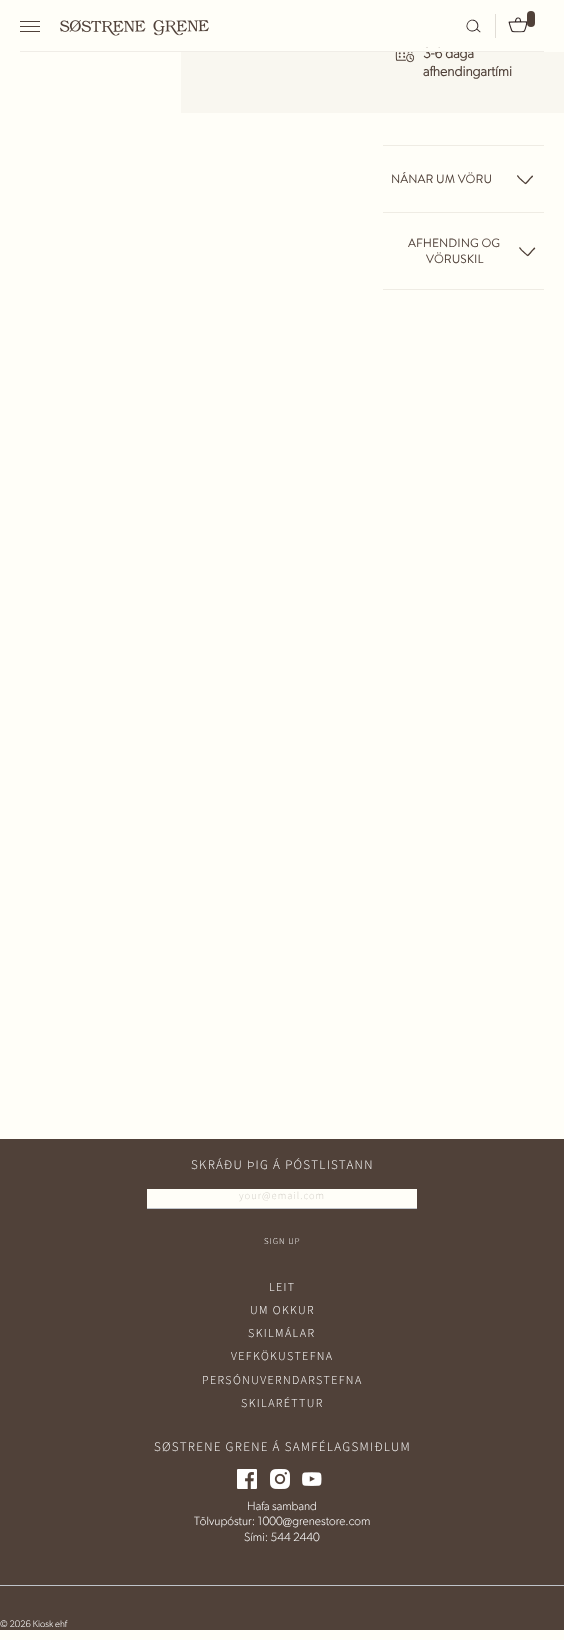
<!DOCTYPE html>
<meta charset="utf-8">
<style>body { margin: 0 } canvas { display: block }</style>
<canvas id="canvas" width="564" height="1640"></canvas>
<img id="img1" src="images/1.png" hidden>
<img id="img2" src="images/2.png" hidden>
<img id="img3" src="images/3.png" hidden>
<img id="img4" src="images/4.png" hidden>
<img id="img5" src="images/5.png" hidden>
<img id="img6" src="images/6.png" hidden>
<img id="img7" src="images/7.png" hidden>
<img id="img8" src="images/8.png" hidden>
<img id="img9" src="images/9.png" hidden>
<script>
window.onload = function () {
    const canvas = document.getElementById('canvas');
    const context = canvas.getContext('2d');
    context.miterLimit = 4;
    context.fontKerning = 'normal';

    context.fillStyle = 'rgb(255, 254, 248)';
    context.fillRect(0, 0, 564, 1640);
    context.fillStyle = 'rgb(80, 65, 57)';
    context.fillRect(20, 21, 20, 1);
    context.fillRect(20, 26, 20, 1);
    context.fillRect(20, 31, 20, 1);
    context.drawImage(document.getElementById('img1'), 60, 20, 149, 16);
    context.drawImage(document.getElementById('img2'), 466, 19, 15, 14);
    context.fillStyle = 'rgb(225, 221, 214)';
    context.fillRect(495, 14, 1, 24);
    context.drawImage(document.getElementById('img3'), 508, 17, 20, 16);
    context.fillStyle = 'rgb(80, 65, 57)';
    context.beginPath();
    context.roundRect(527, 11, 8, 16, 4);
    context.fill();
    context.fillStyle = 'rgb(249, 247, 240)';
    context.fillRect(181, 52, 383, 61);
    context.drawImage(document.getElementById('img4'), 395, 52, 20, 11);
    context.fillStyle = 'rgb(239, 236, 228)';
    context.fillRect(383, 145, 161, 1);
    context.drawImage(document.getElementById('img5'), 517, 175, 16, 10);
    context.fillRect(383, 212, 161, 1);
    context.fillRect(383, 289, 161, 1);
    context.drawImage(document.getElementById('img6'), 519, 247, 17, 10);
    context.fillStyle = 'rgb(80, 65, 57)';
    context.fillRect(0, 1139, 564, 491);
    context.fillStyle = 'rgb(255, 254, 248)';
    context.fillRect(147, 1189, 270, 19);
    context.fillStyle = 'rgb(192, 196, 202)';
    context.fillRect(147, 1208, 270, 1);
    context.drawImage(document.getElementById('img7'), 237, 1469, 20, 20);
    context.drawImage(document.getElementById('img8'), 270, 1469, 20, 20);
    context.drawImage(document.getElementById('img9'), 302, 1472, 20, 14);
    context.fillRect(0, 1585, 564, 1);
    context.font = 'bold 14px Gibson';
    context.fillStyle = 'rgb(80, 65, 57)';
    context.fillText('3-6 daga', 423, 58);
    context.fillStyle = 'rgb(255, 254, 248)';
    context.fillRect(424, 48, 49, 4);
    context.fillStyle = 'rgb(240, 237, 231)';
    context.fillRect(20, 51, 524, 1);
    context.fillStyle = 'rgb(80, 65, 57)';
    context.fillText('afhendingartími', 423, 76);
    context.font = '12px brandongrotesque';
    context.fillText('NÁNAR UM VÖRU', 391, 183);
    context.fillText('AFHENDING OG', 408, 247);
    context.fillText('VÖRUSKIL', 426, 263);
    context.letterSpacing = '1.3px';
    context.font = '300 13px Source Sans Pro';
    context.fillStyle = 'rgb(255, 255, 255)';
    context.fillText('SKRÁÐU ÞIG Á PÓSTLISTANN', 191, 1169);
    context.letterSpacing = '1px';
    context.font = '300 10.5px Source Sans Pro';
    context.fillStyle = 'rgb(211, 207, 200)';
    context.fillText('your@email.com', 239, 1199);
    context.font = '300 8.75px Source Sans Pro';
    context.fillStyle = 'rgb(255, 255, 255)';
    context.fillText('SIGN UP', 264, 1244);
    context.letterSpacing = '1.4px';
    context.font = '300 12px Source Sans Pro';
    context.fillText('LEIT', 269, 1291);
    context.fillText('UM OKKUR', 250, 1314);
    context.fillText('SKILMÁLAR', 248, 1337);
    context.fillText('VEFKÖKUSTEFNA', 231, 1360);
    context.fillText('PERSÓNUVERNDARSTEFNA', 202, 1384);
    context.fillText('SKILARÉTTUR', 241, 1407);
    context.letterSpacing = '1.3px';
    context.font = '300 13px Source Sans Pro';
    context.fillText('SØSTRENE GRENE Á SAMFÉLAGSMIÐLUM', 154, 1451);
    context.letterSpacing = '0px';
    context.font = '300 12px Gibson';
    context.fillText('Hafa samband', 247, 1510);
    context.fillText('Tölvupóstur: 1000@grenestore.com', 194, 1525);
    context.fillText('Sími: 544 2440', 244, 1541);
    context.font = '300 9.5px Gibson';
    context.fillText('© 2026 Kiosk ehf', 0, 1627);
};
</script>
